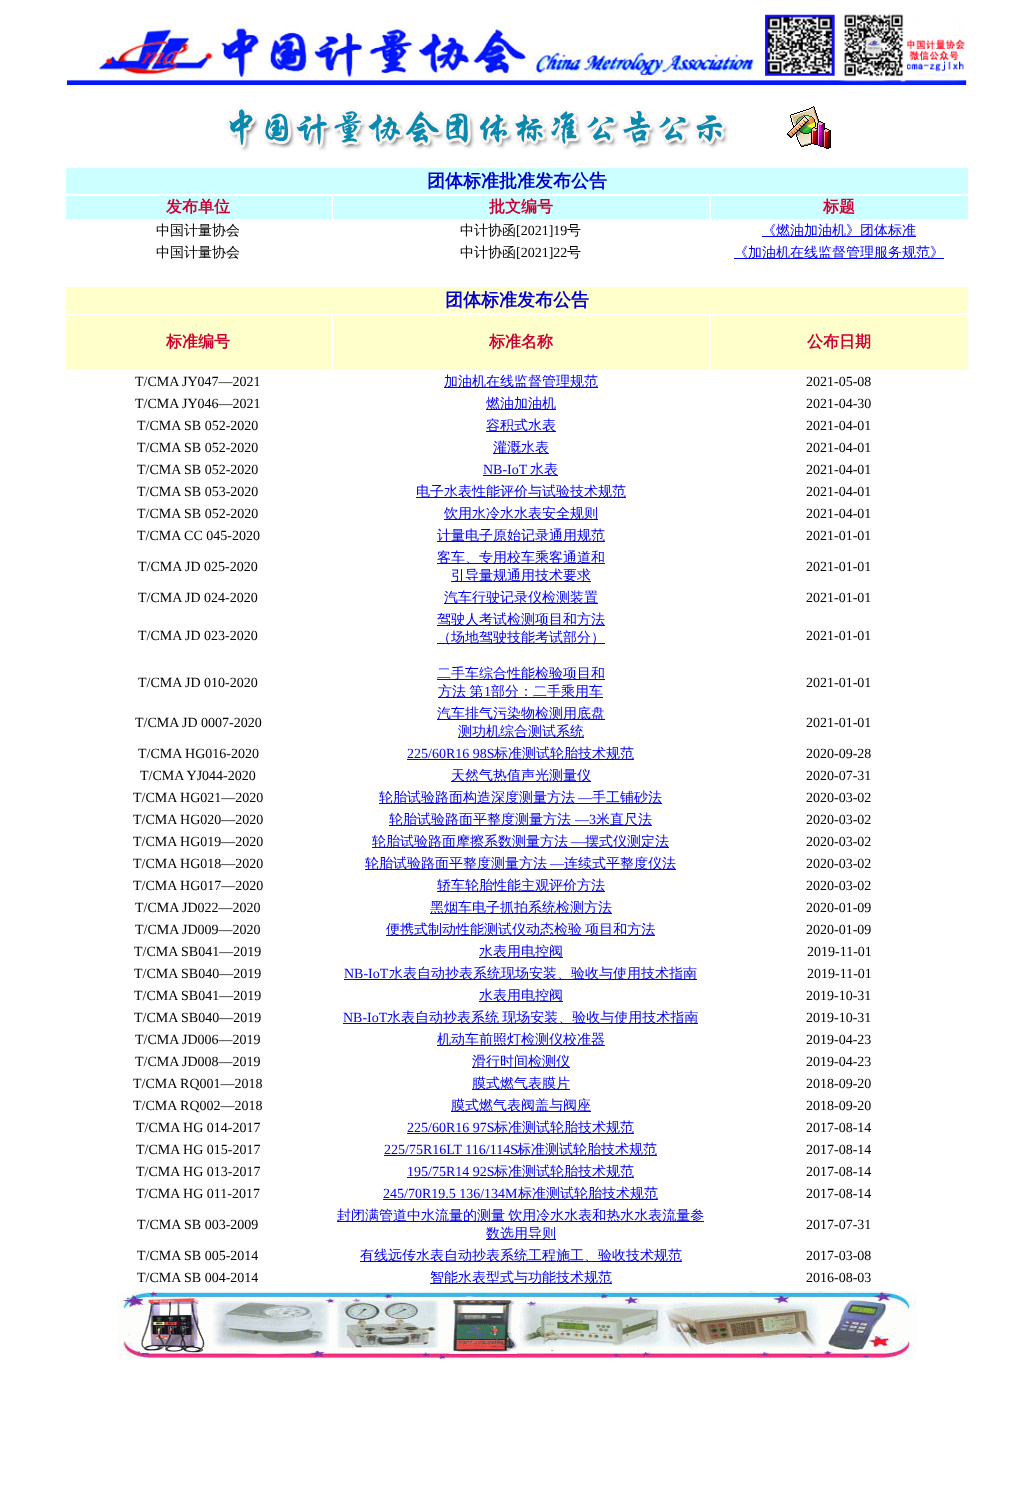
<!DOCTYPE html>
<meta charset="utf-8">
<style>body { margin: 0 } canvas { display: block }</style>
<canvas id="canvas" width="1033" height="1504"></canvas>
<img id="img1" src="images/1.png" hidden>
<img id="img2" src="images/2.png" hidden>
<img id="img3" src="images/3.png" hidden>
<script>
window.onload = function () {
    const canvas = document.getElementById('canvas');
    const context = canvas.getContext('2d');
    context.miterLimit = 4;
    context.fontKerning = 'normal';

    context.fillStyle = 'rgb(255, 255, 255)';
    context.fillRect(0, 0, 1033, 1504);
    context.drawImage(document.getElementById('img1'), 67, 14, 900, 71);
    context.drawImage(document.getElementById('img2'), 226, 106, 605, 46);
    context.fillStyle = 'rgb(204, 255, 255)';
    context.fillRect(66, 168, 902, 26);
    context.fillRect(66, 196, 265, 23);
    context.fillRect(333, 196, 376, 23);
    context.fillRect(711, 196, 257, 23);
    context.fillStyle = 'rgb(0, 0, 238)';
    context.fillRect(762, 236, 154, 1);
    context.fillRect(734, 258, 210, 1);
    context.fillStyle = 'rgb(255, 255, 204)';
    context.fillRect(66, 287, 902, 26);
    context.fillRect(66, 315, 265, 55);
    context.fillRect(333, 315, 376, 55);
    context.fillRect(711, 315, 257, 55);
    context.fillStyle = 'rgb(0, 0, 238)';
    context.fillRect(444, 387, 154, 1);
    context.fillRect(486, 409, 70, 1);
    context.fillRect(486, 431, 70, 1);
    context.fillRect(493, 453, 56, 1);
    context.fillRect(483, 475, 75, 1);
    context.fillRect(416, 497, 210, 1);
    context.fillRect(444, 519, 154, 1);
    context.fillRect(437, 541, 168, 1);
    context.fillRect(437, 563, 168, 1);
    context.fillRect(451, 581, 140, 1);
    context.fillRect(444, 603, 154, 1);
    context.fillRect(437, 625, 168, 1);
    context.fillRect(437, 643, 168, 1);
    context.fillRect(437, 679, 168, 1);
    context.fillRect(438, 697, 165, 1);
    context.fillRect(437, 719, 168, 1);
    context.fillRect(458, 737, 126, 1);
    context.fillRect(407, 759, 227, 1);
    context.fillRect(451, 781, 140, 1);
    context.fillRect(379, 803, 283, 1);
    context.fillRect(389, 825, 263, 1);
    context.fillRect(372, 847, 297, 1);
    context.fillRect(365, 869, 311, 1);
    context.fillRect(437, 891, 168, 1);
    context.fillRect(430, 913, 182, 1);
    context.fillRect(386, 935, 269, 1);
    context.fillRect(479, 957, 84, 1);
    context.fillRect(344, 979, 353, 1);
    context.fillRect(479, 1001, 84, 1);
    context.fillRect(343, 1023, 355, 1);
    context.fillRect(437, 1045, 168, 1);
    context.fillRect(472, 1067, 98, 1);
    context.fillRect(472, 1089, 98, 1);
    context.fillRect(451, 1111, 140, 1);
    context.fillRect(407, 1133, 227, 1);
    context.fillRect(384, 1155, 273, 1);
    context.fillRect(407, 1177, 227, 1);
    context.fillRect(383, 1199, 275, 1);
    context.fillRect(337, 1221, 367, 1);
    context.fillRect(486, 1239, 70, 1);
    context.fillRect(360, 1261, 322, 1);
    context.fillRect(430, 1283, 182, 1);
    context.drawImage(document.getElementById('img3'), 117, 1291, 800, 69);
    context.font = 'bold 18px WenQuanYi Zen Hei';
    context.fillStyle = 'rgb(0, 0, 204)';
    context.fillText('团体标准批准发布公告', 427, 187);
    context.font = 'bold 16px WenQuanYi Zen Hei';
    context.fillStyle = 'rgb(204, 0, 51)';
    context.fillText('发布单位', 166, 212);
    context.fillText('批文编号', 489, 212);
    context.fillText('标题', 823, 212);
    context.font = '500 14px WenQuanYi Zen Hei';
    context.fillStyle = 'rgb(0, 0, 0)';
    context.fillText('中国计量协会', 156, 235);
    context.fillText('中计协函', 460, 235);
    context.font = '14px Liberation Serif';
    context.fillText('[2021]19', 516, 235);
    context.font = '500 14px WenQuanYi Zen Hei';
    context.fillText('号', 567, 235);
    context.fillStyle = 'rgb(0, 0, 238)';
    context.fillText('《燃油加油机》团体标准', 762, 235);
    context.fillStyle = 'rgb(0, 0, 0)';
    context.fillText('中国计量协会', 156, 257);
    context.fillText('中计协函', 460, 257);
    context.font = '14px Liberation Serif';
    context.fillText('[2021]22', 516, 257);
    context.font = '500 14px WenQuanYi Zen Hei';
    context.fillText('号', 567, 257);
    context.fillStyle = 'rgb(0, 0, 238)';
    context.fillText('《加油机在线监督管理服务规范》', 734, 257);
    context.font = 'bold 18px WenQuanYi Zen Hei';
    context.fillStyle = 'rgb(0, 0, 204)';
    context.fillText('团体标准发布公告', 445, 306);
    context.font = 'bold 16px WenQuanYi Zen Hei';
    context.fillStyle = 'rgb(204, 0, 51)';
    context.fillText('标准编号', 166, 347);
    context.fillText('标准名称', 489, 347);
    context.fillText('公布日期', 807, 347);
    context.font = '14px Liberation Serif';
    context.fillStyle = 'rgb(0, 0, 0)';
    context.fillText('T/CMA JY047—2021', 135, 386);
    context.font = '500 14px WenQuanYi Zen Hei';
    context.fillStyle = 'rgb(0, 0, 238)';
    context.fillText('加油机在线监督管理规范', 444, 386);
    context.font = '14px Liberation Serif';
    context.fillStyle = 'rgb(0, 0, 0)';
    context.fillText('2021-05-08', 806, 386);
    context.fillText('T/CMA JY046—2021', 135, 408);
    context.font = '500 14px WenQuanYi Zen Hei';
    context.fillStyle = 'rgb(0, 0, 238)';
    context.fillText('燃油加油机', 486, 408);
    context.font = '14px Liberation Serif';
    context.fillStyle = 'rgb(0, 0, 0)';
    context.fillText('2021-04-30', 806, 408);
    context.fillText('T/CMA SB 052-2020', 137, 430);
    context.font = '500 14px WenQuanYi Zen Hei';
    context.fillStyle = 'rgb(0, 0, 238)';
    context.fillText('容积式水表', 486, 430);
    context.font = '14px Liberation Serif';
    context.fillStyle = 'rgb(0, 0, 0)';
    context.fillText('2021-04-01', 806, 430);
    context.fillText('T/CMA SB 052-2020', 137, 452);
    context.font = '500 14px WenQuanYi Zen Hei';
    context.fillStyle = 'rgb(0, 0, 238)';
    context.fillText('灌溉水表', 493, 452);
    context.font = '14px Liberation Serif';
    context.fillStyle = 'rgb(0, 0, 0)';
    context.fillText('2021-04-01', 806, 452);
    context.fillText('T/CMA SB 052-2020', 137, 474);
    context.fillStyle = 'rgb(0, 0, 238)';
    context.fillText('NB-IoT', 483, 474);
    context.font = '500 14px WenQuanYi Zen Hei';
    context.fillText('水表', 530, 474);
    context.font = '14px Liberation Serif';
    context.fillStyle = 'rgb(0, 0, 0)';
    context.fillText('2021-04-01', 806, 474);
    context.fillText('T/CMA SB 053-2020', 137, 496);
    context.font = '500 14px WenQuanYi Zen Hei';
    context.fillStyle = 'rgb(0, 0, 238)';
    context.fillText('电子水表性能评价与试验技术规范', 416, 496);
    context.font = '14px Liberation Serif';
    context.fillStyle = 'rgb(0, 0, 0)';
    context.fillText('2021-04-01', 806, 496);
    context.fillText('T/CMA SB 052-2020', 137, 518);
    context.font = '500 14px WenQuanYi Zen Hei';
    context.fillStyle = 'rgb(0, 0, 238)';
    context.fillText('饮用水冷水水表安全规则', 444, 518);
    context.font = '14px Liberation Serif';
    context.fillStyle = 'rgb(0, 0, 0)';
    context.fillText('2021-04-01', 806, 518);
    context.fillText('T/CMA CC 045-2020', 137, 540);
    context.font = '500 14px WenQuanYi Zen Hei';
    context.fillStyle = 'rgb(0, 0, 238)';
    context.fillText('计量电子原始记录通用规范', 437, 540);
    context.font = '14px Liberation Serif';
    context.fillStyle = 'rgb(0, 0, 0)';
    context.fillText('2021-01-01', 806, 540);
    context.fillText('T/CMA JD 025-2020', 138, 571);
    context.font = '500 14px WenQuanYi Zen Hei';
    context.fillStyle = 'rgb(0, 0, 238)';
    context.fillText('客车、专用校车乘客通道和', 437, 562);
    context.fillText('引导量规通用技术要求', 451, 580);
    context.font = '14px Liberation Serif';
    context.fillStyle = 'rgb(0, 0, 0)';
    context.fillText('2021-01-01', 806, 571);
    context.fillText('T/CMA JD 024-2020', 138, 602);
    context.font = '500 14px WenQuanYi Zen Hei';
    context.fillStyle = 'rgb(0, 0, 238)';
    context.fillText('汽车行驶记录仪检测装置', 444, 602);
    context.font = '14px Liberation Serif';
    context.fillStyle = 'rgb(0, 0, 0)';
    context.fillText('2021-01-01', 806, 602);
    context.fillText('T/CMA JD 023-2020', 138, 640);
    context.font = '500 14px WenQuanYi Zen Hei';
    context.fillStyle = 'rgb(0, 0, 238)';
    context.fillText('驾驶人考试检测项目和方法', 437, 624);
    context.fillText('（场地驾驶技能考试部分）', 437, 642);
    context.font = '14px Liberation Serif';
    context.fillStyle = 'rgb(0, 0, 0)';
    context.fillText('2021-01-01', 806, 640);
    context.fillText('T/CMA JD 010-2020', 138, 687);
    context.font = '500 14px WenQuanYi Zen Hei';
    context.fillStyle = 'rgb(0, 0, 238)';
    context.fillText('二手车综合性能检验项目和', 437, 678);
    context.wordSpacing = '-1px';
    context.fillText('方法 第', 438, 696);
    context.wordSpacing = '0px';
    context.font = '14px Liberation Serif';
    context.fillText('1', 484, 696);
    context.font = '500 14px WenQuanYi Zen Hei';
    context.fillText('部分：二手乘用车', 491, 696);
    context.font = '14px Liberation Serif';
    context.fillStyle = 'rgb(0, 0, 0)';
    context.fillText('2021-01-01', 806, 687);
    context.fillText('T/CMA JD 0007-2020', 135, 727);
    context.font = '500 14px WenQuanYi Zen Hei';
    context.fillStyle = 'rgb(0, 0, 238)';
    context.fillText('汽车排气污染物检测用底盘', 437, 718);
    context.fillText('测功机综合测试系统', 458, 736);
    context.font = '14px Liberation Serif';
    context.fillStyle = 'rgb(0, 0, 0)';
    context.fillText('2021-01-01', 806, 727);
    context.fillText('T/CMA HG016-2020', 138, 758);
    context.fillStyle = 'rgb(0, 0, 238)';
    context.fillText('225/60R16 98S', 407, 758);
    context.font = '500 14px WenQuanYi Zen Hei';
    context.fillText('标准测试轮胎技术规范', 494, 758);
    context.font = '14px Liberation Serif';
    context.fillStyle = 'rgb(0, 0, 0)';
    context.fillText('2020-09-28', 806, 758);
    context.fillText('T/CMA YJ044-2020', 140, 780);
    context.font = '500 14px WenQuanYi Zen Hei';
    context.fillStyle = 'rgb(0, 0, 238)';
    context.fillText('天然气热值声光测量仪', 451, 780);
    context.font = '14px Liberation Serif';
    context.fillStyle = 'rgb(0, 0, 0)';
    context.fillText('2020-07-31', 806, 780);
    context.fillText('T/CMA HG021—2020', 133, 802);
    context.font = '500 14px WenQuanYi Zen Hei';
    context.fillStyle = 'rgb(0, 0, 238)';
    context.fillText('轮胎试验路面构造深度测量方法', 379, 802);
    context.font = '14px Liberation Serif';
    context.fillText('—', 578, 802);
    context.font = '500 14px WenQuanYi Zen Hei';
    context.fillText('手工铺砂法', 592, 802);
    context.font = '14px Liberation Serif';
    context.fillStyle = 'rgb(0, 0, 0)';
    context.fillText('2020-03-02', 806, 802);
    context.fillText('T/CMA HG020—2020', 133, 824);
    context.font = '500 14px WenQuanYi Zen Hei';
    context.fillStyle = 'rgb(0, 0, 238)';
    context.fillText('轮胎试验路面平整度测量方法', 389, 824);
    context.font = '14px Liberation Serif';
    context.fillText('—3', 575, 824);
    context.font = '500 14px WenQuanYi Zen Hei';
    context.fillText('米直尺法', 596, 824);
    context.font = '14px Liberation Serif';
    context.fillStyle = 'rgb(0, 0, 0)';
    context.fillText('2020-03-02', 806, 824);
    context.fillText('T/CMA HG019—2020', 133, 846);
    context.font = '500 14px WenQuanYi Zen Hei';
    context.fillStyle = 'rgb(0, 0, 238)';
    context.fillText('轮胎试验路面摩擦系数测量方法', 372, 846);
    context.font = '14px Liberation Serif';
    context.fillText('—', 571, 846);
    context.font = '500 14px WenQuanYi Zen Hei';
    context.fillText('摆式仪测定法', 585, 846);
    context.font = '14px Liberation Serif';
    context.fillStyle = 'rgb(0, 0, 0)';
    context.fillText('2020-03-02', 806, 846);
    context.fillText('T/CMA HG018—2020', 133, 868);
    context.font = '500 14px WenQuanYi Zen Hei';
    context.fillStyle = 'rgb(0, 0, 238)';
    context.fillText('轮胎试验路面平整度测量方法', 365, 868);
    context.font = '14px Liberation Serif';
    context.fillText('—', 550, 868);
    context.font = '500 14px WenQuanYi Zen Hei';
    context.fillText('连续式平整度仪法', 564, 868);
    context.font = '14px Liberation Serif';
    context.fillStyle = 'rgb(0, 0, 0)';
    context.fillText('2020-03-02', 806, 868);
    context.fillText('T/CMA HG017—2020', 133, 890);
    context.font = '500 14px WenQuanYi Zen Hei';
    context.fillStyle = 'rgb(0, 0, 238)';
    context.fillText('轿车轮胎性能主观评价方法', 437, 890);
    context.font = '14px Liberation Serif';
    context.fillStyle = 'rgb(0, 0, 0)';
    context.fillText('2020-03-02', 806, 890);
    context.fillText('T/CMA JD022—2020', 135, 912);
    context.font = '500 14px WenQuanYi Zen Hei';
    context.fillStyle = 'rgb(0, 0, 238)';
    context.fillText('黑烟车电子抓拍系统检测方法', 430, 912);
    context.font = '14px Liberation Serif';
    context.fillStyle = 'rgb(0, 0, 0)';
    context.fillText('2020-01-09', 806, 912);
    context.fillText('T/CMA JD009—2020', 135, 934);
    context.wordSpacing = '-1px';
    context.font = '500 14px WenQuanYi Zen Hei';
    context.fillStyle = 'rgb(0, 0, 238)';
    context.fillText('便携式制动性能测试仪动态检验 项目和方法', 386, 934);
    context.wordSpacing = '0px';
    context.font = '14px Liberation Serif';
    context.fillStyle = 'rgb(0, 0, 0)';
    context.fillText('2020-01-09', 806, 934);
    context.fillText('T/CMA SB041—2019', 134, 956);
    context.font = '500 14px WenQuanYi Zen Hei';
    context.fillStyle = 'rgb(0, 0, 238)';
    context.fillText('水表用电控阀', 479, 956);
    context.font = '14px Liberation Serif';
    context.fillStyle = 'rgb(0, 0, 0)';
    context.fillText('2019-11-01', 807, 956);
    context.fillText('T/CMA SB040—2019', 134, 978);
    context.fillStyle = 'rgb(0, 0, 238)';
    context.fillText('NB-IoT', 344, 978);
    context.font = '500 14px WenQuanYi Zen Hei';
    context.fillText('水表自动抄表系统现场安装、验收与使用技术指南', 389, 978);
    context.font = '14px Liberation Serif';
    context.fillStyle = 'rgb(0, 0, 0)';
    context.fillText('2019-11-01', 807, 978);
    context.fillText('T/CMA SB041—2019', 134, 1000);
    context.font = '500 14px WenQuanYi Zen Hei';
    context.fillStyle = 'rgb(0, 0, 238)';
    context.fillText('水表用电控阀', 479, 1000);
    context.font = '14px Liberation Serif';
    context.fillStyle = 'rgb(0, 0, 0)';
    context.fillText('2019-10-31', 806, 1000);
    context.fillText('T/CMA SB040—2019', 134, 1022);
    context.fillStyle = 'rgb(0, 0, 238)';
    context.fillText('NB-IoT', 343, 1022);
    context.wordSpacing = '-1px';
    context.font = '500 14px WenQuanYi Zen Hei';
    context.fillText('水表自动抄表系统 现场安装、验收与使用技术指南', 387, 1022);
    context.wordSpacing = '0px';
    context.font = '14px Liberation Serif';
    context.fillStyle = 'rgb(0, 0, 0)';
    context.fillText('2019-10-31', 806, 1022);
    context.fillText('T/CMA JD006—2019', 135, 1044);
    context.font = '500 14px WenQuanYi Zen Hei';
    context.fillStyle = 'rgb(0, 0, 238)';
    context.fillText('机动车前照灯检测仪校准器', 437, 1044);
    context.font = '14px Liberation Serif';
    context.fillStyle = 'rgb(0, 0, 0)';
    context.fillText('2019-04-23', 806, 1044);
    context.fillText('T/CMA JD008—2019', 135, 1066);
    context.font = '500 14px WenQuanYi Zen Hei';
    context.fillStyle = 'rgb(0, 0, 238)';
    context.fillText('滑行时间检测仪', 472, 1066);
    context.font = '14px Liberation Serif';
    context.fillStyle = 'rgb(0, 0, 0)';
    context.fillText('2019-04-23', 806, 1066);
    context.fillText('T/CMA RQ001—2018', 133, 1088);
    context.font = '500 14px WenQuanYi Zen Hei';
    context.fillStyle = 'rgb(0, 0, 238)';
    context.fillText('膜式燃气表膜片', 472, 1088);
    context.font = '14px Liberation Serif';
    context.fillStyle = 'rgb(0, 0, 0)';
    context.fillText('2018-09-20', 806, 1088);
    context.fillText('T/CMA RQ002—2018', 133, 1110);
    context.font = '500 14px WenQuanYi Zen Hei';
    context.fillStyle = 'rgb(0, 0, 238)';
    context.fillText('膜式燃气表阀盖与阀座', 451, 1110);
    context.font = '14px Liberation Serif';
    context.fillStyle = 'rgb(0, 0, 0)';
    context.fillText('2018-09-20', 806, 1110);
    context.fillText('T/CMA HG 014-2017', 136, 1132);
    context.fillStyle = 'rgb(0, 0, 238)';
    context.fillText('225/60R16 97S', 407, 1132);
    context.font = '500 14px WenQuanYi Zen Hei';
    context.fillText('标准测试轮胎技术规范', 494, 1132);
    context.font = '14px Liberation Serif';
    context.fillStyle = 'rgb(0, 0, 0)';
    context.fillText('2017-08-14', 806, 1132);
    context.fillText('T/CMA HG 015-2017', 136, 1154);
    context.fillStyle = 'rgb(0, 0, 238)';
    context.fillText('225/75R16LT 116/114S', 384, 1154);
    context.font = '500 14px WenQuanYi Zen Hei';
    context.fillText('标准测试轮胎技术规范', 517, 1154);
    context.font = '14px Liberation Serif';
    context.fillStyle = 'rgb(0, 0, 0)';
    context.fillText('2017-08-14', 806, 1154);
    context.fillText('T/CMA HG 013-2017', 136, 1176);
    context.fillStyle = 'rgb(0, 0, 238)';
    context.fillText('195/75R14 92S', 407, 1176);
    context.font = '500 14px WenQuanYi Zen Hei';
    context.fillText('标准测试轮胎技术规范', 494, 1176);
    context.font = '14px Liberation Serif';
    context.fillStyle = 'rgb(0, 0, 0)';
    context.fillText('2017-08-14', 806, 1176);
    context.fillText('T/CMA HG 011-2017', 136, 1198);
    context.fillStyle = 'rgb(0, 0, 238)';
    context.fillText('245/70R19.5 136/134M', 383, 1198);
    context.font = '500 14px WenQuanYi Zen Hei';
    context.fillText('标准测试轮胎技术规范', 518, 1198);
    context.font = '14px Liberation Serif';
    context.fillStyle = 'rgb(0, 0, 0)';
    context.fillText('2017-08-14', 806, 1198);
    context.fillText('T/CMA SB 003-2009', 137, 1229);
    context.wordSpacing = '-1px';
    context.font = '500 14px WenQuanYi Zen Hei';
    context.fillStyle = 'rgb(0, 0, 238)';
    context.fillText('封闭满管道中水流量的测量 饮用冷水水表和热水水表流量参', 337, 1220);
    context.wordSpacing = '0px';
    context.fillText('数选用导则', 486, 1238);
    context.font = '14px Liberation Serif';
    context.fillStyle = 'rgb(0, 0, 0)';
    context.fillText('2017-07-31', 806, 1229);
    context.fillText('T/CMA SB 005-2014', 137, 1260);
    context.font = '500 14px WenQuanYi Zen Hei';
    context.fillStyle = 'rgb(0, 0, 238)';
    context.fillText('有线远传水表自动抄表系统工程施工、验收技术规范', 360, 1260);
    context.font = '14px Liberation Serif';
    context.fillStyle = 'rgb(0, 0, 0)';
    context.fillText('2017-03-08', 806, 1260);
    context.fillText('T/CMA SB 004-2014', 137, 1282);
    context.font = '500 14px WenQuanYi Zen Hei';
    context.fillStyle = 'rgb(0, 0, 238)';
    context.fillText('智能水表型式与功能技术规范', 430, 1282);
    context.font = '14px Liberation Serif';
    context.fillStyle = 'rgb(0, 0, 0)';
    context.fillText('2016-08-03', 806, 1282);
};
</script>
